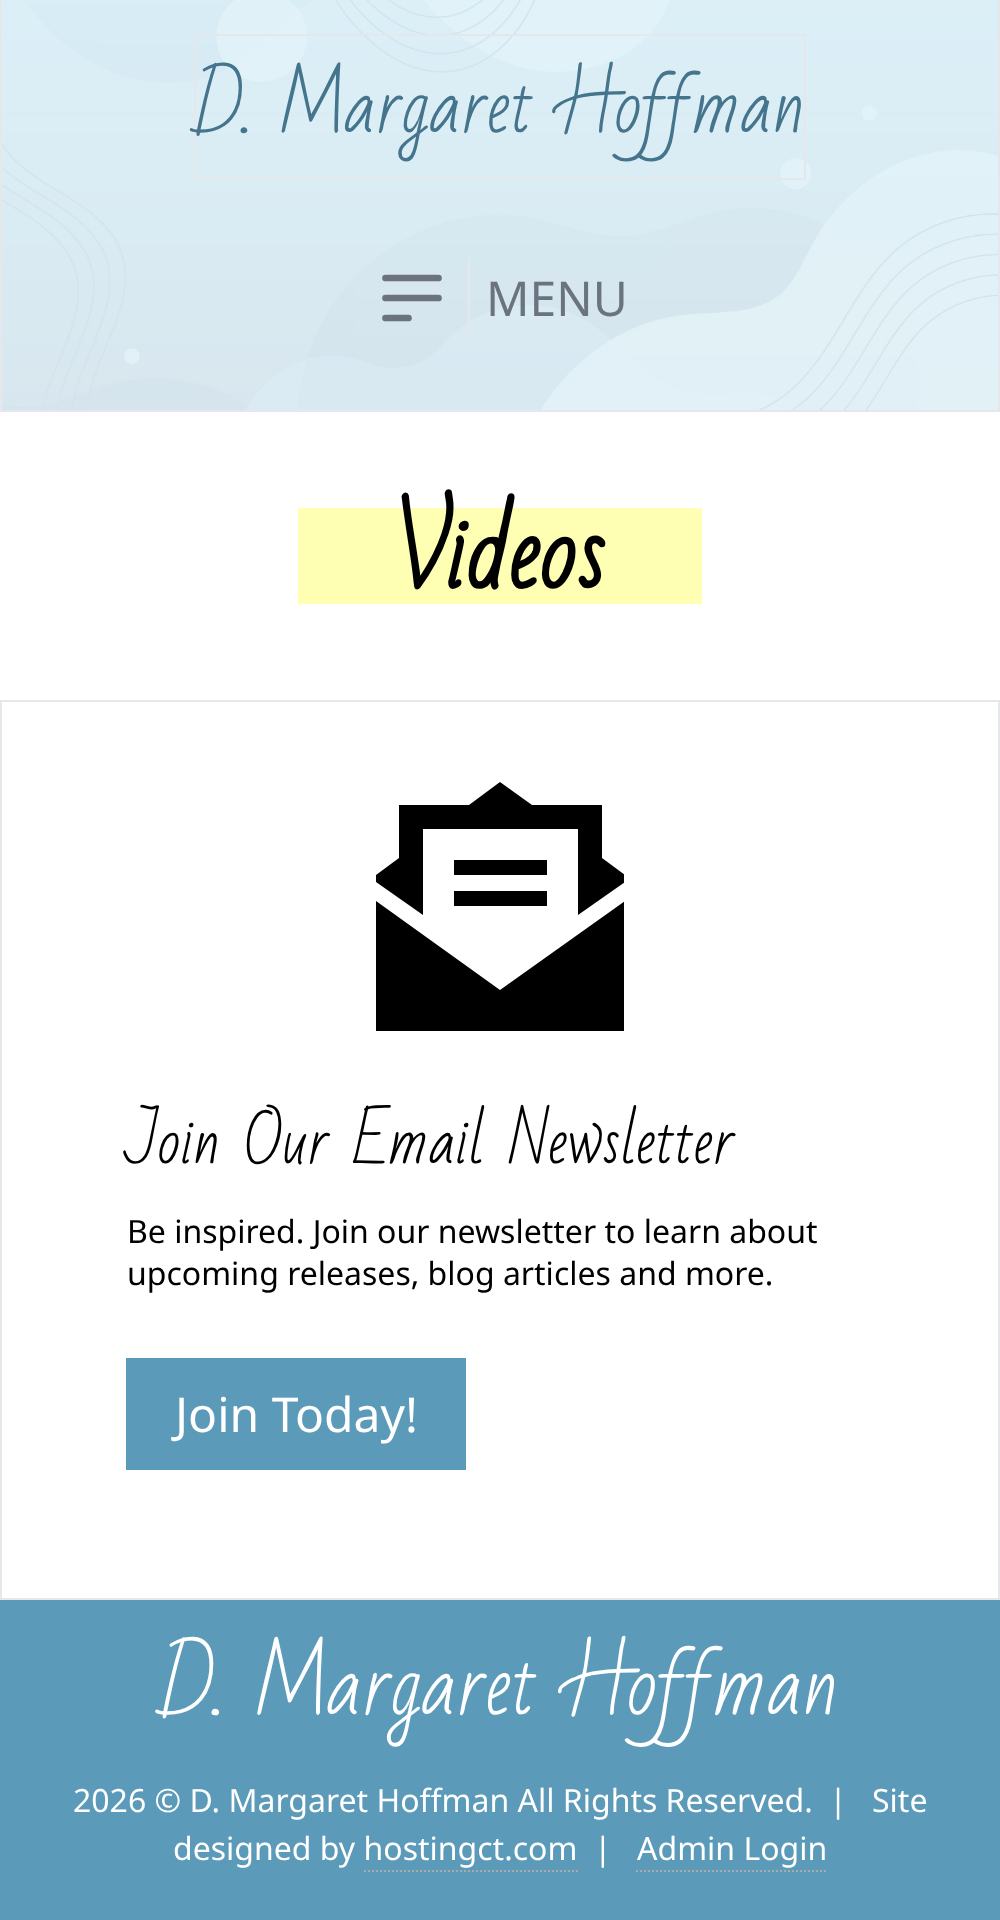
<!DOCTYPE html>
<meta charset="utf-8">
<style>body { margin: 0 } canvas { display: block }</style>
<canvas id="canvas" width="1000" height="1920"></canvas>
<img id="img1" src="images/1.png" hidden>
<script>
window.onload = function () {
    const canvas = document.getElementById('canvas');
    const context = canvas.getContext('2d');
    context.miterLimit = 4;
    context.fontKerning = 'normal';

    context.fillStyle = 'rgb(255, 255, 255)';
    context.fillRect(0, 0, 1000, 1920);
    context.fillStyle = 'rgb(206, 236, 248)';
    context.beginPath();
    context.rect(1, -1, 998, 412);
    context.fill();
    context.strokeStyle = 'rgb(229, 231, 235)';
    context.lineWidth = 2;
    context.stroke();
    context.drawImage(document.getElementById('img1'), 2, 0, 996, 410);
    context.strokeRect(195, 35, 610, 144);
    context.fillStyle = 'rgb(229, 231, 235)';
    context.fillRect(468, 258, 2, 80);
    context.beginPath();
    context.moveTo(385.5, 278);
    context.lineTo(438.5, 278);
    context.moveTo(385.5, 298);
    context.lineTo(438.5, 298);
    context.moveTo(385.5, 318);
    context.lineTo(408.5, 318);
    context.strokeStyle = 'rgb(107, 114, 128)';
    context.lineWidth = 6.7;
    context.lineCap = 'round';
    context.lineJoin = 'round';
    context.stroke();
    context.fillStyle = 'rgb(255, 255, 179)';
    context.fillRect(298, 508, 404, 96);
    context.strokeStyle = 'rgb(229, 231, 235)';
    context.lineWidth = 2;
    context.lineJoin = 'miter';
    context.strokeRect(1, 701, 998, 898);
    context.save();
    context.beginPath();
    context.rect(376, 782, 248, 250);
    context.clip();
    context.fillStyle = 'rgb(0, 0, 0)';
    context.beginPath();
    context.moveTo(625, 1000);
    context.lineTo(625, 1031);
    context.lineTo(376, 1031);
    context.lineTo(376, 901);
    context.lineTo(500, 990);
    context.lineTo(625, 901);
    context.closePath();
    context.moveTo(625, 875);
    context.lineTo(625, 882);
    context.lineTo(578, 915);
    context.lineTo(578, 829);
    context.lineTo(423, 829);
    context.lineTo(423, 915);
    context.lineTo(376, 882);
    context.lineTo(376, 875);
    context.lineTo(399, 858);
    context.lineTo(399, 805);
    context.lineTo(469, 805);
    context.lineTo(500, 782);
    context.lineTo(532, 805);
    context.lineTo(602, 805);
    context.lineTo(602, 858);
    context.closePath();
    context.moveTo(462, 860);
    context.lineTo(547, 860);
    context.lineTo(547, 875);
    context.lineTo(454, 875);
    context.lineTo(454, 860);
    context.closePath();
    context.moveTo(462, 891);
    context.lineTo(547, 891);
    context.lineTo(547, 906);
    context.lineTo(454, 906);
    context.lineTo(454, 891);
    context.closePath();
    context.fill();
    context.restore();
    context.fillStyle = 'rgb(91, 154, 185)';
    context.fillRect(126, 1358, 340, 112);
    context.fillRect(0, 1600, 1000, 320);
    context.beginPath();
    context.moveTo(636, 1871);
    context.lineTo(826, 1871);
    context.strokeStyle = 'rgb(170, 170, 170)';
    context.lineCap = 'butt';
    context.setLineDash([2, 2]);
    context.stroke();
    context.beginPath();
    context.moveTo(364, 1871);
    context.lineTo(578, 1871);
    context.stroke();
    context.font = '72px Bad Script';
    context.fillStyle = 'rgb(68, 117, 141)';
    context.fillText('D. Margaret Hoffman', 195, 132);
    context.font = '48px Noto Sans';
    context.fillStyle = 'rgb(107, 114, 128)';
    context.fillText('MENU', 486, 316);
    context.font = 'bold 96px Bad Script';
    context.fillStyle = 'rgb(0, 0, 0)';
    context.fillText('Videos', 394, 588);
    context.font = '60px Bad Script';
    context.fillText('Join Our Email Newsletter', 127, 1163);
    context.font = '32px Noto Sans';
    context.fillText('Be inspired. Join our newsletter to learn about', 127, 1243);
    context.fillText('upcoming releases, blog articles and more.', 127, 1285);
    context.font = '48px Noto Sans';
    context.fillStyle = 'rgb(255, 255, 255)';
    context.fillText('Join Today!', 175, 1432);
    context.font = '80px Bad Script';
    context.fillText('D. Margaret Hoffman', 161, 1714);
    context.font = '32px Noto Sans';
    context.fillText('2026 © D. Margaret Hoffman All Rights Reserved.  |', 73, 1812);
    context.fillText('Site', 872, 1812);
    context.fillText('designed by hostingct.com', 173, 1860);
    context.fillText('|', 594, 1860);
    context.fillText('Admin Login', 637, 1860);
};
</script>
